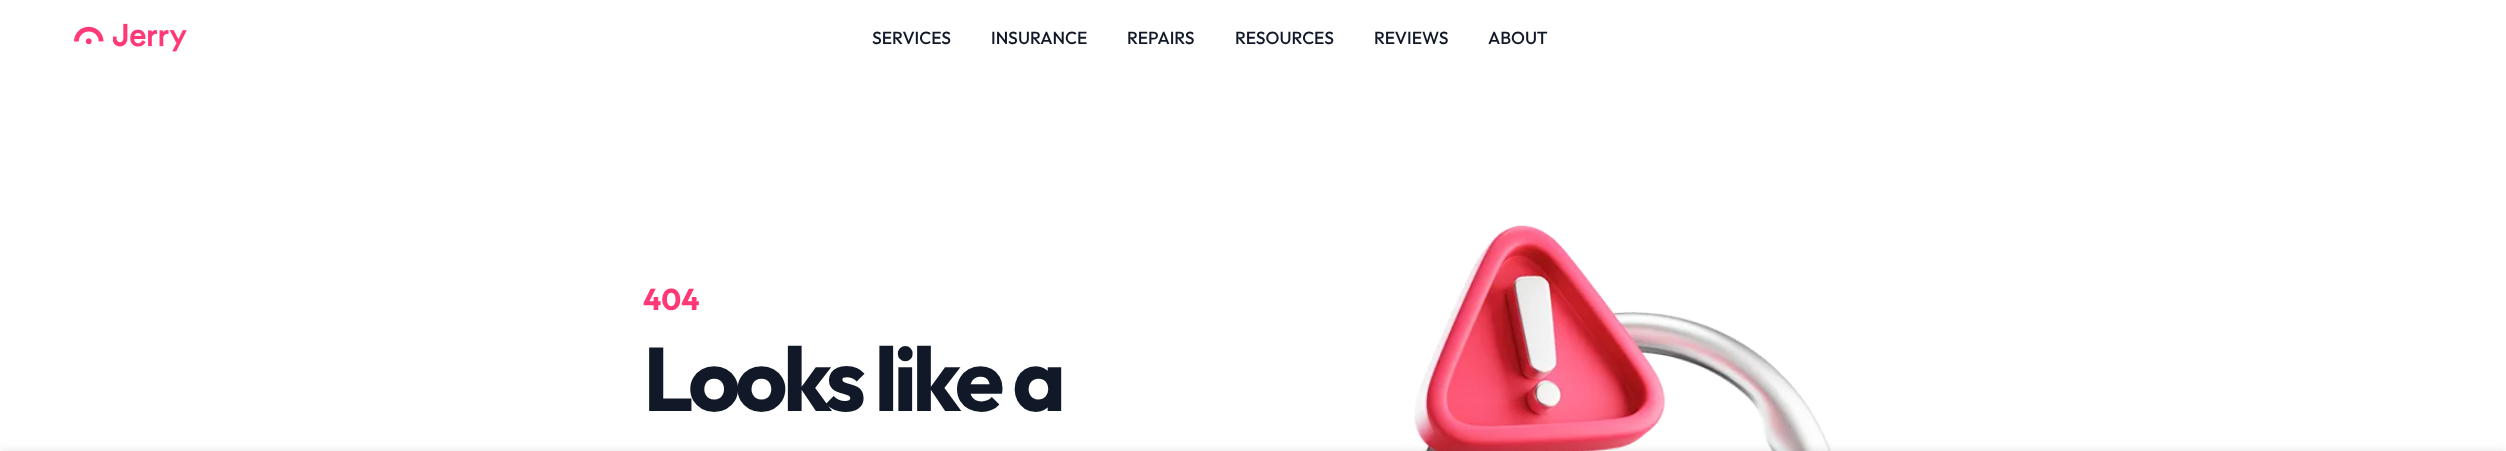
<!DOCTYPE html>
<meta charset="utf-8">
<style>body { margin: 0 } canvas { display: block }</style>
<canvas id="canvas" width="2506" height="451"></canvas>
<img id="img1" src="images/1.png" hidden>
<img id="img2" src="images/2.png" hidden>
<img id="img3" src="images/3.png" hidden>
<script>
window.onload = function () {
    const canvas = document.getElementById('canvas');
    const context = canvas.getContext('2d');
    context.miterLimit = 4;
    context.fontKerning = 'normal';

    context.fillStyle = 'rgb(255, 255, 255)';
    context.fillRect(0, 0, 2506, 451);
    context.drawImage(document.getElementById('img1'), 74, 26, 30, 19);
    context.drawImage(document.getElementById('img2'), 113, 23, 74, 29);
    context.drawImage(document.getElementById('img3'), 1414, 225, 417, 226);
    context.fillStyle = 'rgba(0, 0, 0, 0.1)';
    context.filter = 'blur(5px)';
    context.beginPath();
    context.rect(0, 451, 2506, 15);
    context.fill();
    context.filter = 'none';
    context.font = '500 17.5px Outfit';
    context.fillStyle = 'rgb(17, 24, 39)';
    context.fillText('SERVICES', 872, 44);
    context.fillText('INSURANCE', 991, 44);
    context.fillText('REPAIRS', 1127, 44);
    context.fillText('RESOURCES', 1235, 44);
    context.fillText('REVIEWS', 1374, 44);
    context.fillText('ABOUT', 1488, 44);
    context.font = 'bold 30px Outfit';
    context.fillStyle = 'rgb(255, 57, 117)';
    context.fillText('404', 643, 310);
    context.letterSpacing = '-4.5px';
    context.font = 'bold 90px Outfit';
    context.fillStyle = 'rgb(17, 24, 39)';
    context.fillText('Looks like a', 643, 411);
};
</script>
